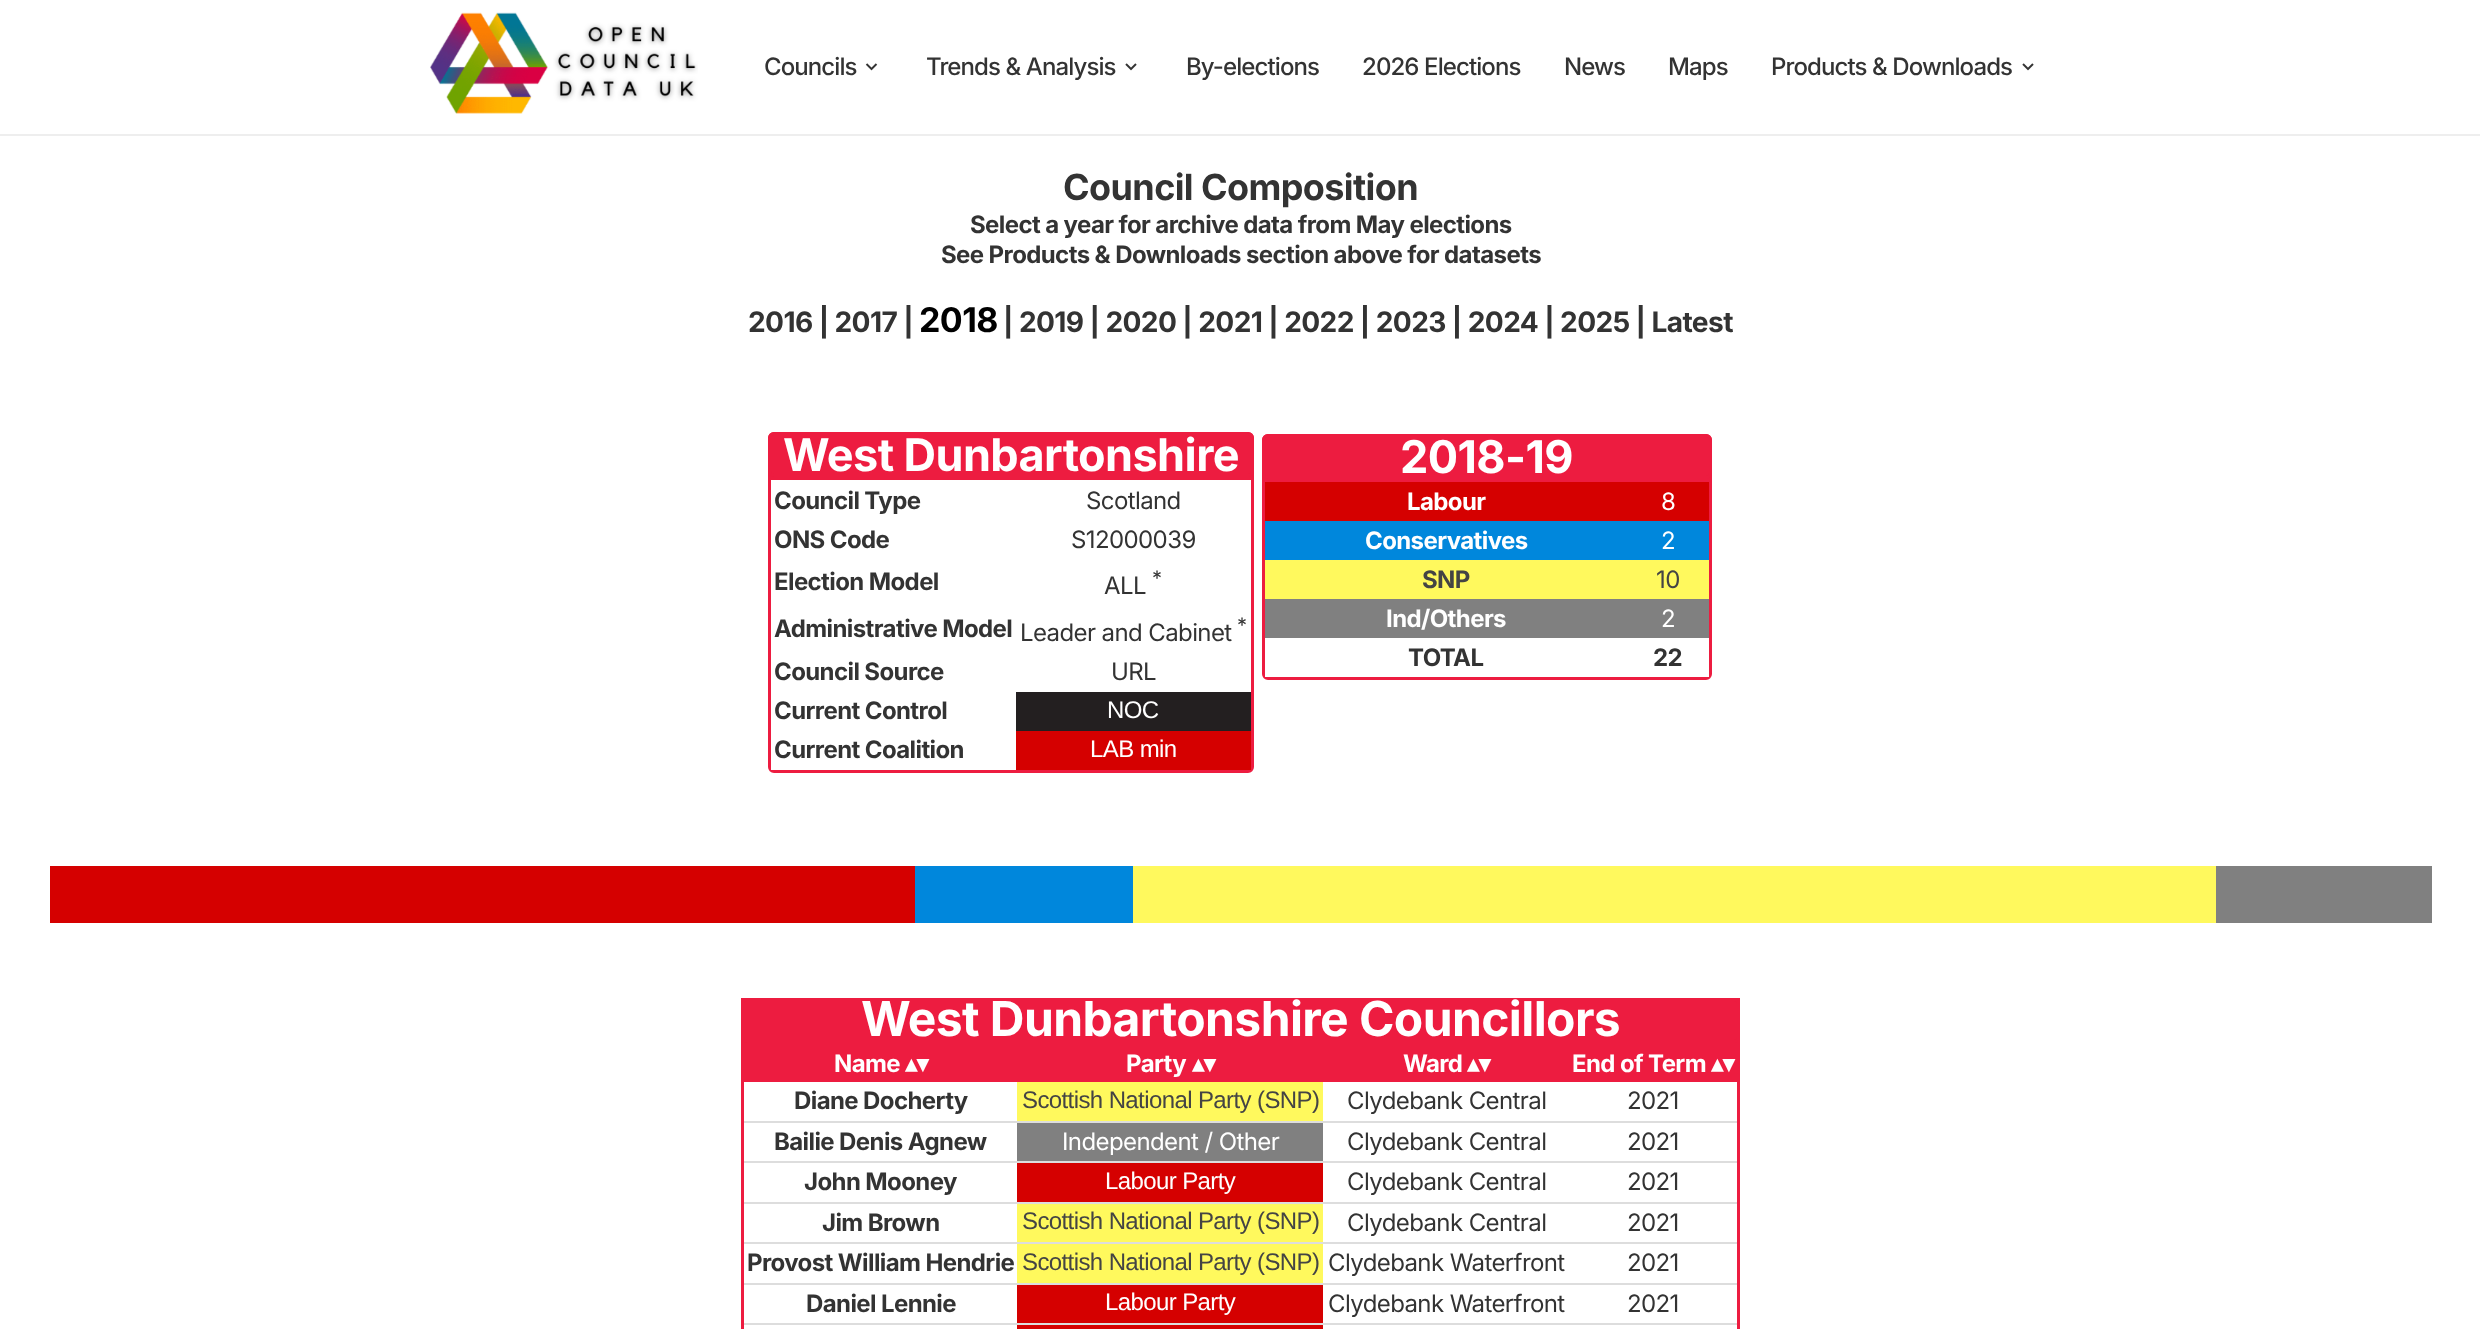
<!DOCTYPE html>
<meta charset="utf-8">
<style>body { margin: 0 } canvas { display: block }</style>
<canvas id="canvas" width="2480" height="1329"></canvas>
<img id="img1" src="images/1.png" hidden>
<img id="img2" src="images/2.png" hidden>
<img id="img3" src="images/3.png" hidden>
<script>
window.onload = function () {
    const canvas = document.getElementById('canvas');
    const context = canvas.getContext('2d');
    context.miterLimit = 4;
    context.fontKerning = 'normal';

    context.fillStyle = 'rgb(255, 255, 255)';
    context.fillRect(0, 0, 2480, 1329);
    context.fillStyle = 'rgb(238, 238, 238)';
    context.fillRect(0, 134, 2480, 2);
    context.drawImage(document.getElementById('img1'), 430, 12, 268, 102);
    context.drawImage(document.getElementById('img2'), 865, 63, 13, 8);
    context.drawImage(document.getElementById('img3'), 1125, 63, 12, 8);
    context.drawImage(document.getElementById('img3'), 2022, 63, 12, 8);
    context.fillStyle = 'rgb(237, 28, 64)';
    context.beginPath();
    context.roundRect(769.5, 433.5, 483, 338, 4.5);
    context.fill();
    context.strokeStyle = 'rgb(237, 28, 64)';
    context.lineWidth = 3;
    context.stroke();
    context.beginPath();
    context.roundRect(769.5, 433.5, 483, 42, 4.5);
    context.fill();
    context.stroke();
    context.fillStyle = 'rgb(255, 255, 255)';
    context.fillRect(771, 480, 480, 212);
    context.fillRect(771, 692, 245, 78);
    context.fillStyle = 'rgb(35, 31, 32)';
    context.fillRect(1016, 692, 235, 39);
    context.fillStyle = 'rgb(213, 0, 0)';
    context.fillRect(1016, 731, 235, 39);
    context.fillStyle = 'rgb(237, 28, 64)';
    context.beginPath();
    context.roundRect(1263.5, 435.5, 447, 243, 4.5);
    context.fill();
    context.stroke();
    context.beginPath();
    context.roundRect(1263.5, 435.5, 447, 42, 4.5);
    context.fill();
    context.stroke();
    context.fillStyle = 'rgb(213, 0, 0)';
    context.fillRect(1265, 482, 444, 39);
    context.fillStyle = 'rgb(0, 135, 220)';
    context.fillRect(1265, 521, 444, 39);
    context.fillStyle = 'rgb(255, 249, 93)';
    context.fillRect(1265, 560, 444, 39);
    context.fillStyle = 'rgb(128, 128, 128)';
    context.fillRect(1265, 599, 444, 39);
    context.fillStyle = 'rgb(255, 255, 255)';
    context.fillRect(1265, 638, 444, 39);
    context.fillStyle = 'rgb(213, 0, 0)';
    context.fillRect(50, 866, 865, 57);
    context.fillStyle = 'rgb(0, 135, 220)';
    context.fillRect(915, 866, 218, 57);
    context.fillStyle = 'rgb(255, 249, 93)';
    context.fillRect(1133, 866, 1083, 57);
    context.fillStyle = 'rgb(128, 128, 128)';
    context.fillRect(2216, 866, 216, 57);
    context.fillStyle = 'rgb(237, 28, 64)';
    context.fillRect(744, 1042, 993, 40);
    context.beginPath();
    context.roundRect(742.5, 999.5, 996, 42, 4.5);
    context.fill();
    context.stroke();
    context.fillRect(741, 998, 999, 3);
    context.fillStyle = 'rgb(221, 221, 221)';
    context.fillRect(741, 1121, 999, 2);
    context.fillRect(741, 1161, 999, 2);
    context.fillRect(741, 1202, 999, 2);
    context.fillRect(741, 1242, 999, 2);
    context.fillRect(741, 1283, 999, 2);
    context.fillRect(741, 1323, 999, 2);
    context.fillStyle = 'rgb(237, 28, 64)';
    context.fillRect(1737, 998, 3, 331);
    context.fillRect(741, 998, 3, 331);
    context.fillStyle = 'rgb(255, 249, 93)';
    context.fillRect(1017, 1082, 306, 39);
    context.fillStyle = 'rgb(128, 128, 128)';
    context.fillRect(1017, 1123, 306, 38);
    context.fillStyle = 'rgb(213, 0, 0)';
    context.fillRect(1017, 1163, 306, 39);
    context.fillStyle = 'rgb(255, 249, 93)';
    context.fillRect(1017, 1204, 306, 38);
    context.fillRect(1017, 1244, 306, 39);
    context.fillStyle = 'rgb(213, 0, 0)';
    context.fillRect(1017, 1285, 306, 38);
    context.fillRect(1017, 1325, 306, 4);
    context.letterSpacing = '-0.9px';
    context.font = '500 24px Inter';
    context.fillStyle = 'rgb(51, 51, 51)';
    context.fillText('Councils', 764, 75);
    context.fillText('Trends & Analysis', 926, 75);
    context.fillText('By-elections', 1186, 75);
    context.fillText('2026 Elections', 1362, 75);
    context.fillText('News', 1564, 75);
    context.fillText('Maps', 1668, 75);
    context.fillText('Products & Downloads', 1771, 75);
    context.letterSpacing = '-0.6px';
    context.font = 'bold 36px Inter';
    context.fillText('Council Composition', 1063, 200);
    context.font = 'bold 24px Inter';
    context.fillText('Select a year for archive data from May elections', 970, 233);
    context.fillText('See Products & Downloads section above for datasets', 941, 263);
    context.font = 'bold 28.1px Inter';
    context.fillText('2016 | 2017 |', 748, 332);
    context.font = 'bold 34px Inter';
    context.fillStyle = 'rgb(0, 0, 0)';
    context.fillText('2018', 919, 332);
    context.font = 'bold 28.1px Inter';
    context.fillStyle = 'rgb(51, 51, 51)';
    context.fillText('| 2019 | 2020 | 2021 | 2022 | 2023 | 2024 | 2025 | Latest', 1003, 332);
    context.font = 'bold 45px Inter';
    context.fillStyle = 'rgb(255, 255, 255)';
    context.fillText('West Dunbartonshire', 783, 471);
    context.font = 'bold 24px Inter';
    context.fillStyle = 'rgb(51, 51, 51)';
    context.fillText('Council Type', 774, 509);
    context.font = '24px Inter';
    context.fillText('Scotland', 1086, 509);
    context.font = 'bold 24px Inter';
    context.fillText('ONS Code', 774, 548);
    context.font = '24px Inter';
    context.fillText('S12000039', 1071, 548);
    context.font = 'bold 24px Inter';
    context.fillText('Election Model', 774, 590);
    context.font = '20px Inter';
    context.fillText('*', 1152, 585);
    context.font = '24px Inter';
    context.fillText('ALL', 1104, 594);
    context.font = 'bold 24px Inter';
    context.fillText('Administrative Model', 774, 637);
    context.font = '20px Inter';
    context.fillText('*', 1237, 632);
    context.font = '24px Inter';
    context.fillText('Leader and Cabinet', 1020, 641);
    context.font = 'bold 24px Inter';
    context.fillText('Council Source', 774, 680);
    context.font = '24px Inter';
    context.fillText('URL', 1111, 680);
    context.font = 'bold 24px Inter';
    context.fillText('Current Control', 774, 719);
    context.font = '24px Liberation Sans';
    context.fillStyle = 'rgb(255, 255, 255)';
    context.fillText('NOC', 1107, 718);
    context.font = 'bold 24px Inter';
    context.fillStyle = 'rgb(51, 51, 51)';
    context.fillText('Current Coalition', 774, 758);
    context.font = '24px Liberation Sans';
    context.fillStyle = 'rgb(255, 255, 255)';
    context.fillText('LAB min', 1090, 757);
    context.font = 'bold 45px Inter';
    context.fillText('2018-19', 1400, 473);
    context.font = 'bold 24px Inter';
    context.fillText('Labour', 1407, 510);
    context.font = '24px Inter';
    context.fillText('8', 1661, 510);
    context.font = 'bold 24px Inter';
    context.fillText('Conservatives', 1365, 549);
    context.font = '24px Inter';
    context.fillText('2', 1661, 549);
    context.font = 'bold 24px Inter';
    context.fillStyle = 'rgb(68, 68, 68)';
    context.fillText('SNP', 1422, 588);
    context.font = '24px Inter';
    context.fillText('10', 1656, 588);
    context.font = 'bold 24px Inter';
    context.fillStyle = 'rgb(255, 255, 255)';
    context.fillText('Ind/Others', 1386, 627);
    context.font = '24px Inter';
    context.fillText('2', 1661, 627);
    context.font = 'bold 24px Inter';
    context.fillStyle = 'rgb(51, 51, 51)';
    context.fillText('TOTAL', 1408, 666);
    context.fillText('22', 1653, 666);
    context.font = 'bold 48px Inter';
    context.fillStyle = 'rgb(255, 255, 255)';
    context.fillText('West Dunbartonshire Councillors', 861, 1036);
    context.font = 'bold 24px Inter';
    context.fillText('Name', 834, 1072);
    context.font = 'bold 24px DejaVu Sans';
    context.fillText('▴▾', 905, 1072);
    context.font = 'bold 24px Inter';
    context.fillText('Party', 1126, 1072);
    context.font = 'bold 24px DejaVu Sans';
    context.fillText('▴▾', 1192, 1072);
    context.font = 'bold 24px Inter';
    context.fillText('Ward', 1403, 1072);
    context.font = 'bold 24px DejaVu Sans';
    context.fillText('▴▾', 1467, 1072);
    context.font = 'bold 24px Inter';
    context.fillText('End of Term', 1572, 1072);
    context.font = 'bold 24px DejaVu Sans';
    context.fillText('▴▾', 1711, 1072);
    context.font = 'bold 24px Inter';
    context.fillStyle = 'rgb(51, 51, 51)';
    context.fillText('Diane Docherty', 794, 1109);
    context.font = '24px Liberation Sans';
    context.fillStyle = 'rgb(68, 68, 68)';
    context.fillText('Scottish National Party (SNP)', 1022, 1108);
    context.font = '24px Inter';
    context.fillStyle = 'rgb(51, 51, 51)';
    context.fillText('Clydebank Central', 1347, 1109);
    context.fillText('2021', 1627, 1109);
    context.font = 'bold 24px Inter';
    context.fillText('Bailie Denis Agnew', 774, 1150);
    context.font = '24px Inter';
    context.fillStyle = 'rgb(255, 255, 255)';
    context.fillText('Independent / Other', 1062, 1150);
    context.fillStyle = 'rgb(51, 51, 51)';
    context.fillText('Clydebank Central', 1347, 1150);
    context.fillText('2021', 1627, 1150);
    context.font = 'bold 24px Inter';
    context.fillText('John Mooney', 804, 1190);
    context.font = '24px Liberation Sans';
    context.fillStyle = 'rgb(255, 255, 255)';
    context.fillText('Labour Party', 1105, 1189);
    context.font = '24px Inter';
    context.fillStyle = 'rgb(51, 51, 51)';
    context.fillText('Clydebank Central', 1347, 1190);
    context.fillText('2021', 1627, 1190);
    context.font = 'bold 24px Inter';
    context.fillText('Jim Brown', 822, 1231);
    context.font = '24px Liberation Sans';
    context.fillStyle = 'rgb(68, 68, 68)';
    context.fillText('Scottish National Party (SNP)', 1022, 1229);
    context.font = '24px Inter';
    context.fillStyle = 'rgb(51, 51, 51)';
    context.fillText('Clydebank Central', 1347, 1231);
    context.fillText('2021', 1627, 1231);
    context.font = 'bold 24px Inter';
    context.fillText('Provost William Hendrie', 747, 1271);
    context.font = '24px Liberation Sans';
    context.fillStyle = 'rgb(68, 68, 68)';
    context.fillText('Scottish National Party (SNP)', 1022, 1270);
    context.font = '24px Inter';
    context.fillStyle = 'rgb(51, 51, 51)';
    context.fillText('Clydebank Waterfront', 1328, 1271);
    context.fillText('2021', 1627, 1271);
    context.font = 'bold 24px Inter';
    context.fillText('Daniel Lennie', 806, 1312);
    context.font = '24px Liberation Sans';
    context.fillStyle = 'rgb(255, 255, 255)';
    context.fillText('Labour Party', 1105, 1310);
    context.font = '24px Inter';
    context.fillStyle = 'rgb(51, 51, 51)';
    context.fillText('Clydebank Waterfront', 1328, 1312);
    context.fillText('2021', 1627, 1312);
};
</script>
